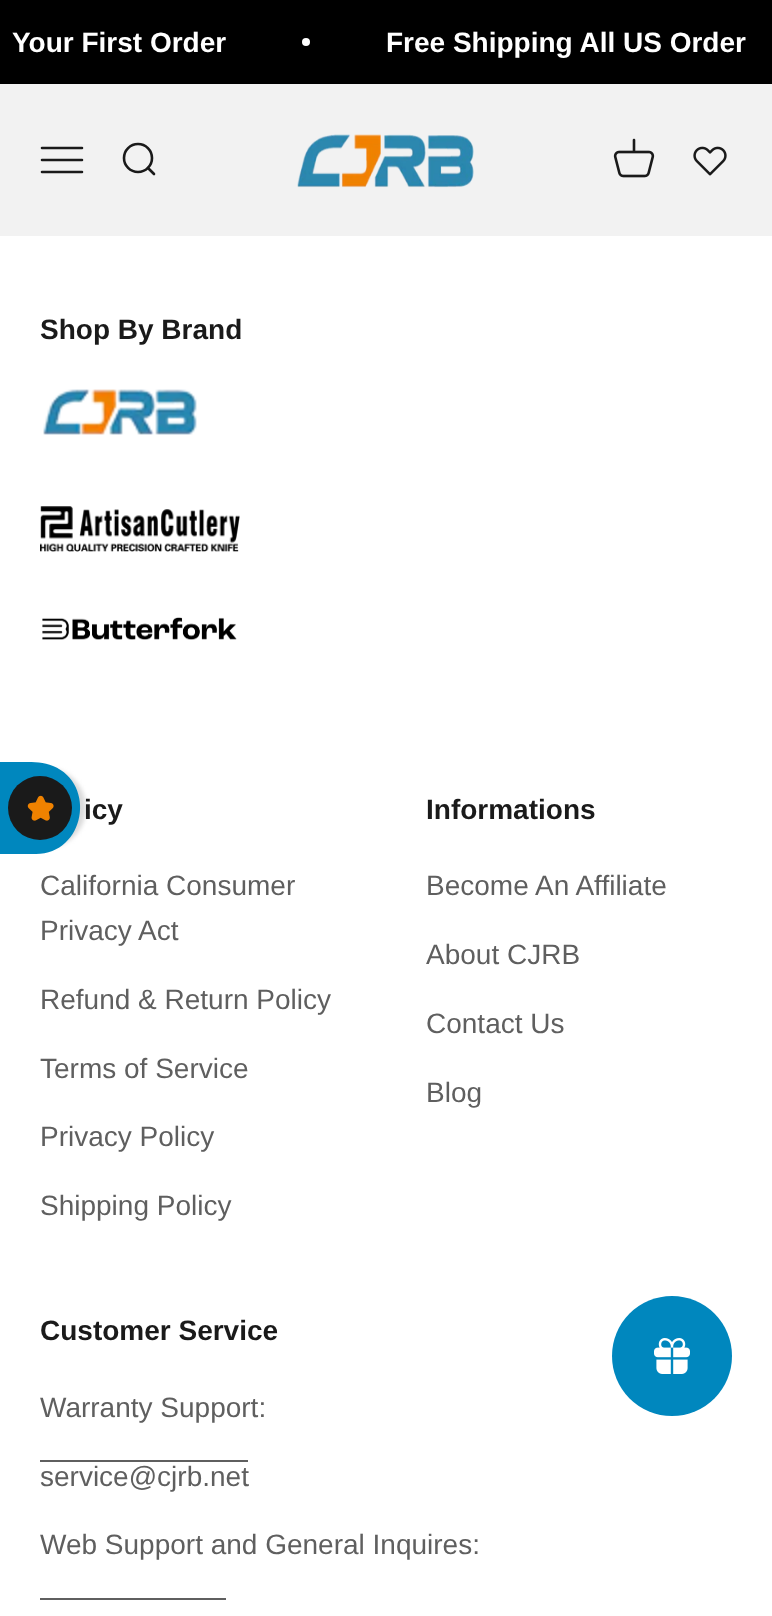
<!DOCTYPE html>
<meta charset="utf-8">
<style>body { margin: 0 } canvas { display: block }</style>
<canvas id="canvas" width="772" height="1616"></canvas>
<img id="img1" src="images/1.png" hidden>
<img id="img2" src="images/2.png" hidden>
<img id="img3" src="images/3.png" hidden>
<img id="img4" src="images/4.png" hidden>
<img id="img5" src="images/5.png" hidden>
<img id="img6" src="images/6.png" hidden>
<img id="img7" src="images/7.png" hidden>
<img id="img8" src="images/8.png" hidden>
<script>
window.onload = function () {
    const canvas = document.getElementById('canvas');
    const context = canvas.getContext('2d');
    context.miterLimit = 4;
    context.fontKerning = 'normal';

    context.fillStyle = 'rgb(255, 255, 255)';
    context.fillRect(0, 0, 772, 1616);
    context.fillStyle = 'rgb(0, 0, 0)';
    context.fillRect(0, 0, 772, 84);
    context.fillStyle = 'rgb(255, 255, 255)';
    context.beginPath();
    context.arc(306, 42, 4, 0, 2 * Math.PI);
    context.fill();
    context.fillStyle = 'rgb(242, 242, 242)';
    context.fillRect(0, 84, 772, 152);
    context.beginPath();
    context.moveTo(42, 148);
    context.lineTo(82, 148);
    context.moveTo(42, 160);
    context.lineTo(82, 160);
    context.moveTo(42, 172);
    context.lineTo(82, 172);
    context.strokeStyle = 'rgb(26, 26, 26)';
    context.lineWidth = 2.6;
    context.lineCap = 'round';
    context.stroke();
    context.beginPath();
    context.arc(138, 158, 14, 0, 2 * Math.PI);
    context.stroke();
    context.beginPath();
    context.moveTo(148, 168);
    context.lineTo(154, 174);
    context.lineJoin = 'round';
    context.stroke();
    context.drawImage(document.getElementById('img1'), 297, 134, 177, 54);
    context.drawImage(document.getElementById('img2'), 613, 138, 42, 40);
    context.drawImage(document.getElementById('img3'), 693, 146, 34, 30);
    context.drawImage(document.getElementById('img4'), 43, 389, 154, 46);
    context.drawImage(document.getElementById('img5'), 40, 506, 200, 46);
    context.drawImage(document.getElementById('img6'), 42, 617, 195, 23);
    context.fillStyle = 'rgb(95, 95, 95)';
    context.fillRect(40, 1460, 208, 2);
    context.fillRect(40, 1598, 186, 2);
    context.fillStyle = 'rgb(218, 218, 218)';
    context.filter = 'blur(2px)';
    context.beginPath();
    context.roundRect(-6, 768, 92, 80, 44);
    context.fill();
    context.filter = 'none';
    context.fillStyle = 'rgb(0, 135, 190)';
    context.beginPath();
    context.moveTo(0, 854);
    context.lineTo(0, 762);
    context.lineTo(24, 762);
    context.bezierCurveTo(34, 762, 44, 762, 53, 766);
    context.bezierCurveTo(97, 784, 85, 854, 36, 854);
    context.closePath();
    context.fill();
    context.fillStyle = 'rgb(26, 26, 26)';
    context.beginPath();
    context.arc(40, 808, 32, 0, 2 * Math.PI);
    context.fill();
    context.drawImage(document.getElementById('img7'), 27, 795, 27, 26);
    context.fillStyle = 'rgb(0, 135, 190)';
    context.beginPath();
    context.arc(672, 1356, 60, 0, 2 * Math.PI);
    context.fill();
    context.drawImage(document.getElementById('img8'), 654, 1338, 36, 36);
    context.font = 'bold 28px Liberation Sans';
    context.fillStyle = 'rgb(255, 255, 255)';
    context.fillText('Your First Order', 12, 52);
    context.fillText('Free Shipping All US Order', 386, 52);
    context.fillStyle = 'rgb(26, 26, 26)';
    context.fillText('Shop By Brand', 40, 339);
    context.fillText('icy', 84, 819);
    context.font = '28px Liberation Sans';
    context.fillStyle = 'rgb(95, 95, 95)';
    context.fillText('California Consumer', 40, 895);
    context.fillText('Privacy Act', 40, 940);
    context.fillText('Refund & Return Policy', 40, 1009);
    context.fillText('Terms of Service', 40, 1078);
    context.fillText('Privacy Policy', 40, 1146);
    context.fillText('Shipping Policy', 40, 1215);
    context.font = 'bold 28px Liberation Sans';
    context.fillStyle = 'rgb(26, 26, 26)';
    context.fillText('Informations', 426, 819);
    context.font = '28px Liberation Sans';
    context.fillStyle = 'rgb(95, 95, 95)';
    context.fillText('Become An Affiliate', 426, 895);
    context.fillText('About CJRB', 426, 964);
    context.fillText('Contact Us', 426, 1033);
    context.fillText('Blog', 426, 1102);
    context.font = 'bold 28px Liberation Sans';
    context.fillStyle = 'rgb(26, 26, 26)';
    context.fillText('Customer Service', 40, 1340);
    context.font = '28px Liberation Sans';
    context.fillStyle = 'rgb(95, 95, 95)';
    context.fillText('Warranty Support:', 40, 1417);
    context.fillText('service@cjrb.net', 40, 1486);
    context.fillText('Web Support and General Inquires:', 40, 1554);
};
</script>
